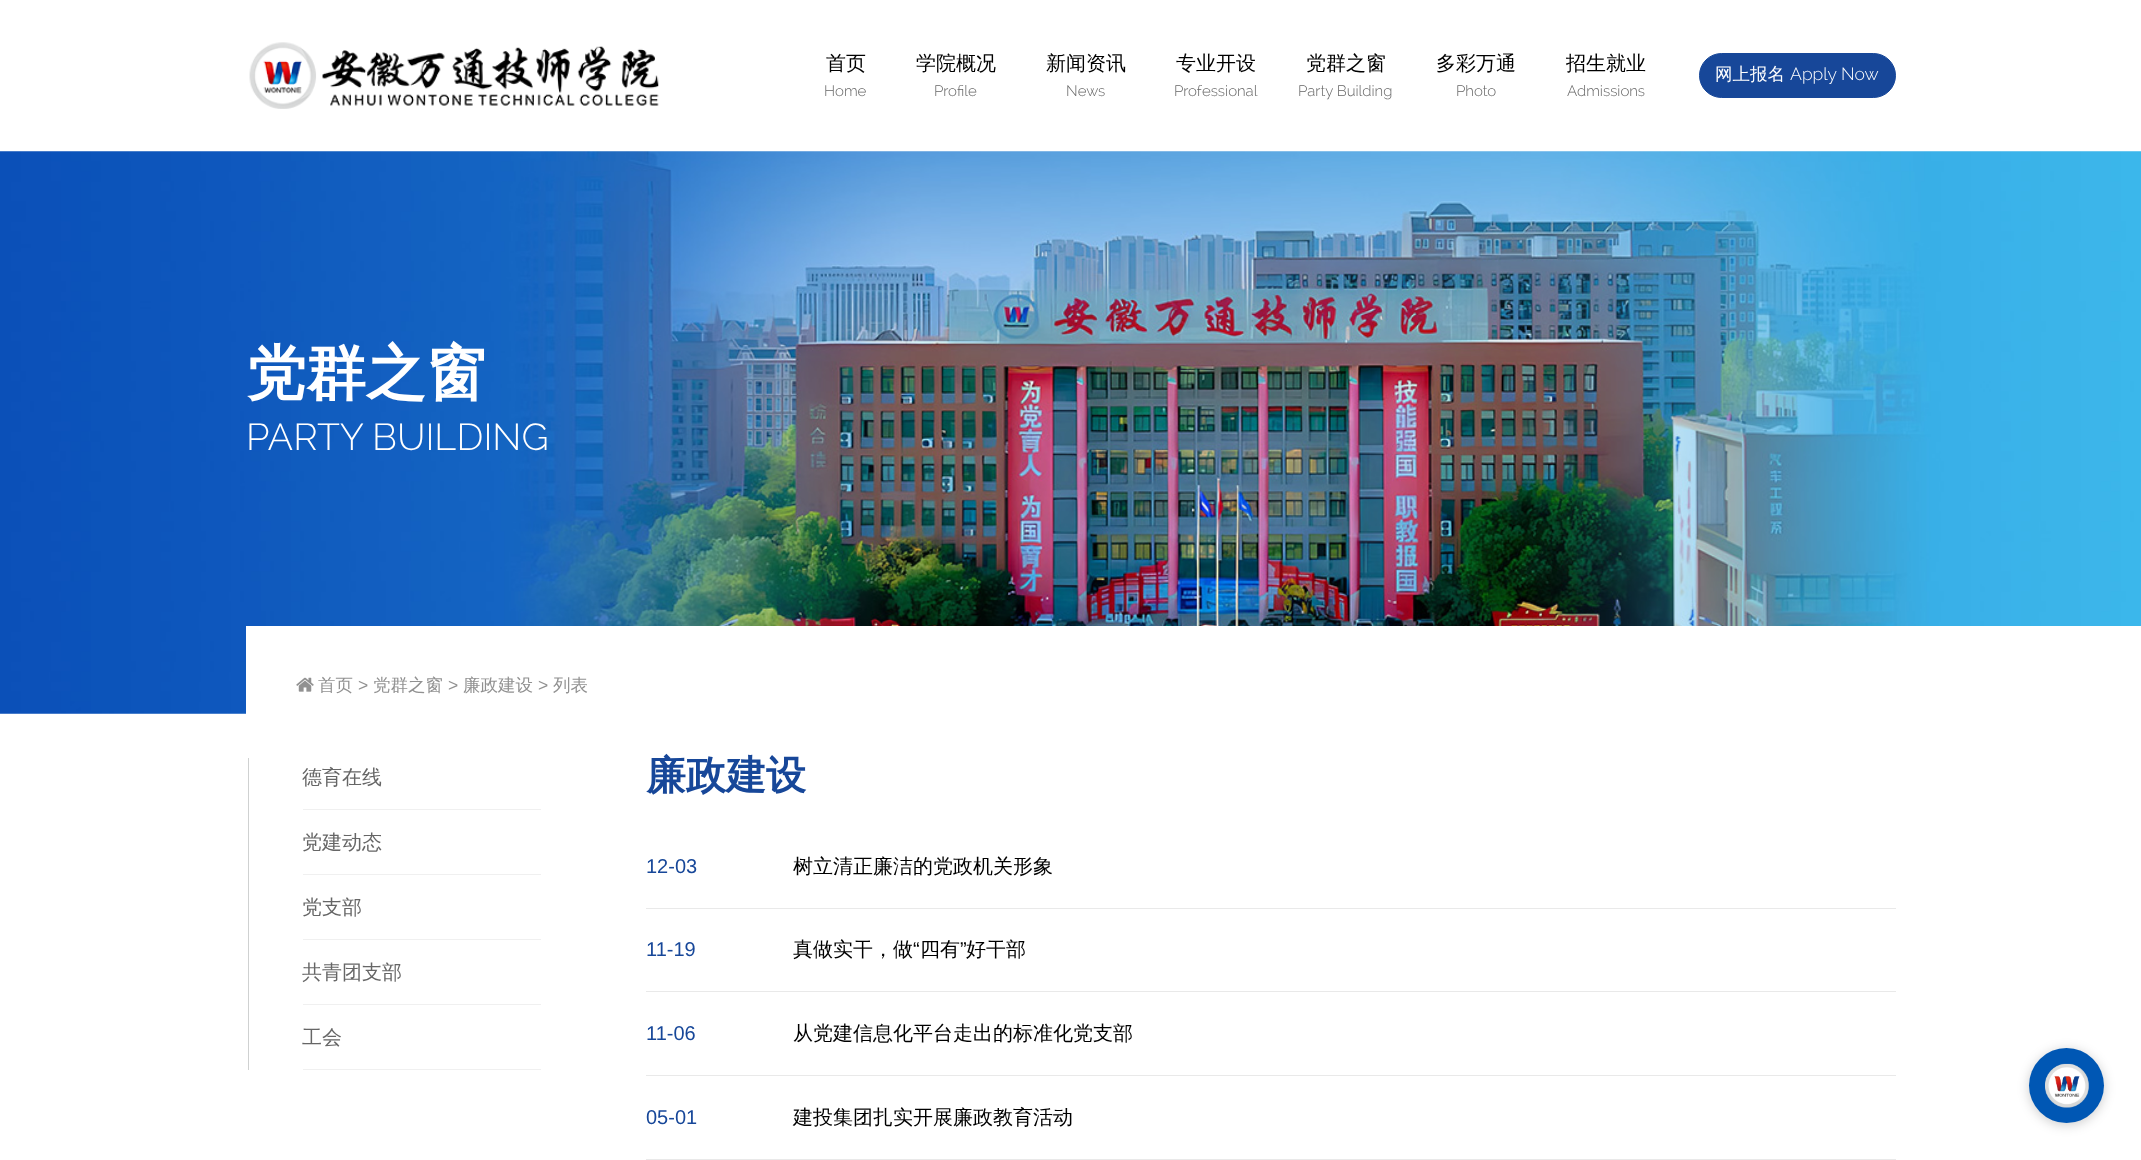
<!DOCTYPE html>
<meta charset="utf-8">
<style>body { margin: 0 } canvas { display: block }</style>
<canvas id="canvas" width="2141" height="1160"></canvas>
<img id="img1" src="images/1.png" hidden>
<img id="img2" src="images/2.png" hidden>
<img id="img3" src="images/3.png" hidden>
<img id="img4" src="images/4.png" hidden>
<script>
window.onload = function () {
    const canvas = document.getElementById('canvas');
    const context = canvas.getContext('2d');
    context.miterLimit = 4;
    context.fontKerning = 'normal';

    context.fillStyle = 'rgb(255, 255, 255)';
    context.fillRect(0, 0, 2141, 1160);
    context.drawImage(document.getElementById('img1'), 249, 42, 410, 67);
    context.fillStyle = 'rgb(23, 71, 153)';
    context.beginPath();
    context.roundRect(1699.5, 53.5, 196, 44, 22);
    context.fill();
    context.strokeStyle = 'rgb(23, 71, 153)';
    context.stroke();
    context.drawImage(document.getElementById('img2'), 0, 151, 2141, 563);
    context.fillStyle = 'rgb(255, 255, 255)';
    context.fillRect(246, 626, 1895, 88);
    context.drawImage(document.getElementById('img3'), 296, 677, 18, 15);
    context.fillStyle = 'rgb(207, 209, 209)';
    context.fillRect(248, 758, 1, 312);
    context.fillStyle = 'rgb(240, 240, 240)';
    context.fillRect(303, 809, 238, 1);
    context.fillRect(303, 874, 238, 1);
    context.fillRect(303, 939, 238, 1);
    context.fillRect(303, 1004, 238, 1);
    context.fillRect(303, 1069, 238, 1);
    context.fillStyle = 'rgb(233, 233, 233)';
    context.fillRect(646, 908, 1250, 1);
    context.fillRect(646, 991, 1250, 1);
    context.fillRect(646, 1075, 1250, 1);
    context.fillRect(646, 1159, 1250, 1);
    context.fillStyle = 'rgba(0, 0, 0, 0.2)';
    context.filter = 'blur(6px)';
    context.beginPath();
    context.roundRect(2029, 1050, 75, 75, 37.5);
    context.fill();
    context.filter = 'none';
    context.fillStyle = 'rgb(0, 87, 180)';
    context.beginPath();
    context.arc(2066.5, 1085.5, 37.5, 0, 2 * Math.PI);
    context.fill();
    context.drawImage(document.getElementById('img4'), 2045, 1063, 44, 45);
    context.font = '500 20px WenQuanYi Zen Hei';
    context.fillStyle = 'rgb(0, 0, 0)';
    context.fillText('首页', 826, 70);
    context.font = '300 15px Raleway';
    context.fillStyle = 'rgb(102, 102, 102)';
    context.fillText('Home', 824, 96);
    context.font = '500 20px WenQuanYi Zen Hei';
    context.fillStyle = 'rgb(0, 0, 0)';
    context.fillText('学院概况', 916, 70);
    context.font = '300 15px Raleway';
    context.fillStyle = 'rgb(102, 102, 102)';
    context.fillText('Profile', 934, 96);
    context.font = '500 20px WenQuanYi Zen Hei';
    context.fillStyle = 'rgb(0, 0, 0)';
    context.fillText('新闻资讯', 1046, 70);
    context.font = '300 15px Raleway';
    context.fillStyle = 'rgb(102, 102, 102)';
    context.fillText('News', 1066, 96);
    context.font = '500 20px WenQuanYi Zen Hei';
    context.fillStyle = 'rgb(0, 0, 0)';
    context.fillText('专业开设', 1176, 70);
    context.font = '300 15px Raleway';
    context.fillStyle = 'rgb(102, 102, 102)';
    context.fillText('Professional', 1174, 96);
    context.font = '500 20px WenQuanYi Zen Hei';
    context.fillStyle = 'rgb(0, 0, 0)';
    context.fillText('党群之窗', 1306, 70);
    context.font = '300 15px Raleway';
    context.fillStyle = 'rgb(102, 102, 102)';
    context.fillText('Party Building', 1298, 96);
    context.font = '500 20px WenQuanYi Zen Hei';
    context.fillStyle = 'rgb(0, 0, 0)';
    context.fillText('多彩万通', 1436, 70);
    context.font = '300 15px Raleway';
    context.fillStyle = 'rgb(102, 102, 102)';
    context.fillText('Photo', 1456, 96);
    context.font = '500 20px WenQuanYi Zen Hei';
    context.fillStyle = 'rgb(0, 0, 0)';
    context.fillText('招生就业', 1566, 70);
    context.font = '300 15px Raleway';
    context.fillStyle = 'rgb(102, 102, 102)';
    context.fillText('Admissions', 1567, 96);
    context.font = '500 17.5px WenQuanYi Zen Hei';
    context.fillStyle = 'rgb(255, 255, 255)';
    context.fillText('网上报名', 1715, 80);
    context.font = '300 17.5px Raleway';
    context.fillText('Apply Now', 1790, 80);
    context.font = 'bold 60px WenQuanYi Zen Hei';
    context.fillText('党群之窗', 246, 394);
    context.font = '300 37.5px Raleway';
    context.fillText('PARTY BUILDING', 246, 450);
    context.font = '500 17.5px WenQuanYi Zen Hei';
    context.fillStyle = 'rgb(145, 145, 145)';
    context.fillText('首页', 318, 691);
    context.font = '17.5px Liberation Sans';
    context.fillText('>', 358, 691);
    context.font = '500 17.5px WenQuanYi Zen Hei';
    context.fillText('党群之窗', 373, 691);
    context.font = '17.5px Liberation Sans';
    context.fillText('>', 448, 691);
    context.font = '500 17.5px WenQuanYi Zen Hei';
    context.fillText('廉政建设', 463, 691);
    context.font = '17.5px Liberation Sans';
    context.fillText('>', 538, 691);
    context.font = '500 17.5px WenQuanYi Zen Hei';
    context.fillText('列表', 553, 691);
    context.font = '500 20px WenQuanYi Zen Hei';
    context.fillStyle = 'rgb(102, 102, 102)';
    context.fillText('德育在线', 302, 784);
    context.fillText('党建动态', 302, 849);
    context.fillText('党支部', 302, 914);
    context.fillText('共青团支部', 302, 979);
    context.fillText('工会', 302, 1044);
    context.font = 'bold 40px WenQuanYi Zen Hei';
    context.fillStyle = 'rgb(23, 71, 153)';
    context.fillText('廉政建设', 646, 789);
    context.font = '20px Liberation Sans';
    context.fillText('12-03', 646, 873);
    context.font = '500 20px WenQuanYi Zen Hei';
    context.fillStyle = 'rgb(0, 0, 0)';
    context.fillText('树立清正廉洁的党政机关形象', 793, 873);
    context.font = '20px Liberation Sans';
    context.fillStyle = 'rgb(23, 71, 153)';
    context.fillText('11-19', 646, 956);
    context.font = '500 20px WenQuanYi Zen Hei';
    context.fillStyle = 'rgb(0, 0, 0)';
    context.fillText('真做实干，做', 793, 956);
    context.font = '20px Liberation Sans';
    context.fillText('“', 913, 956);
    context.font = '500 20px WenQuanYi Zen Hei';
    context.fillText('四有', 920, 956);
    context.font = '20px Liberation Sans';
    context.fillText('”', 960, 956);
    context.font = '500 20px WenQuanYi Zen Hei';
    context.fillText('好干部', 966, 956);
    context.font = '20px Liberation Sans';
    context.fillStyle = 'rgb(23, 71, 153)';
    context.fillText('11-06', 646, 1040);
    context.font = '500 20px WenQuanYi Zen Hei';
    context.fillStyle = 'rgb(0, 0, 0)';
    context.fillText('从党建信息化平台走出的标准化党支部', 793, 1040);
    context.font = '20px Liberation Sans';
    context.fillStyle = 'rgb(23, 71, 153)';
    context.fillText('05-01', 646, 1124);
    context.font = '500 20px WenQuanYi Zen Hei';
    context.fillStyle = 'rgb(0, 0, 0)';
    context.fillText('建投集团扎实开展廉政教育活动', 793, 1124);
};
</script>
